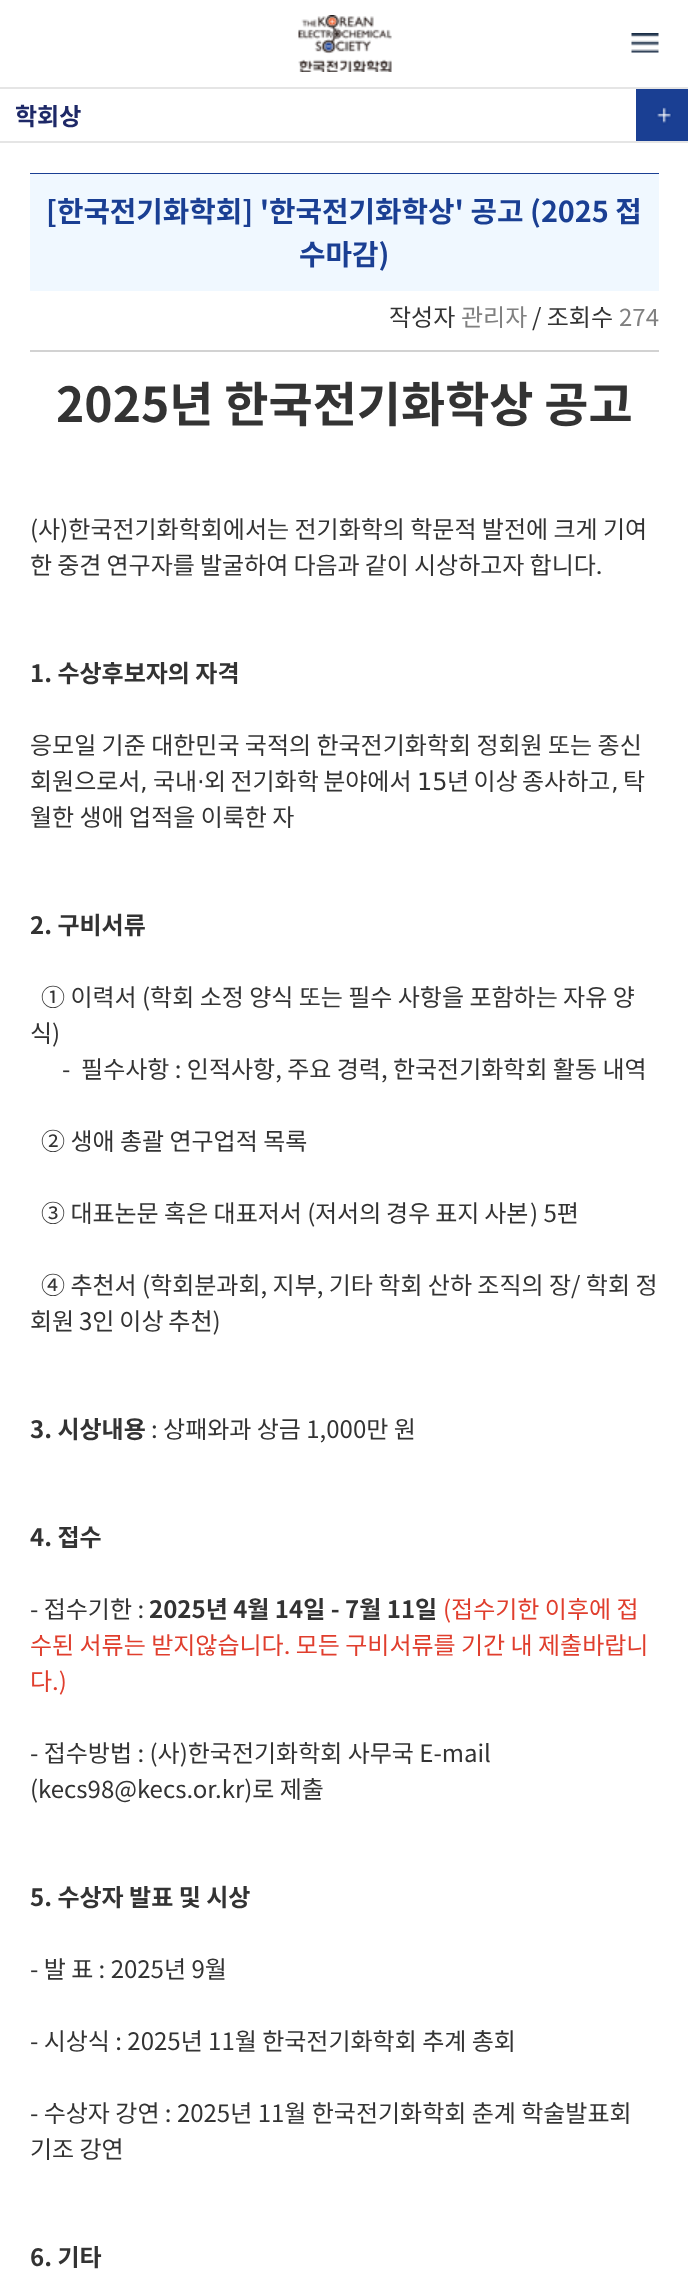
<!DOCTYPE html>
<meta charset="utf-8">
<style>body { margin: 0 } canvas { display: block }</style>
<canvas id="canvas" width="688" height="2280"></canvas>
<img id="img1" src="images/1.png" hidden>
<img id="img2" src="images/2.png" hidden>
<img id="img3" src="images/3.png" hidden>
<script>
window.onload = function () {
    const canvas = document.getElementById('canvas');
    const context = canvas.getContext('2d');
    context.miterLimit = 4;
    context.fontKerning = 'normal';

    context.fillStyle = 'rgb(255, 255, 255)';
    context.fillRect(0, 0, 688, 2280);
    context.fillStyle = 'rgb(229, 229, 229)';
    context.fillRect(0, 87, 688, 2);
    context.drawImage(document.getElementById('img1'), 298, 15, 94, 57);
    context.drawImage(document.getElementById('img2'), 631, 33, 28, 20);
    context.fillRect(0, 141, 688, 2);
    context.drawImage(document.getElementById('img3'), 636, 89, 52, 52);
    context.fillStyle = 'rgb(26, 63, 147)';
    context.fillRect(30, 173, 629, 1);
    context.fillStyle = 'rgb(210, 210, 210)';
    context.fillRect(30, 350, 629, 2);
    context.fillStyle = 'rgb(240, 248, 255)';
    context.fillRect(30, 174, 629, 117);
    context.font = 'bold 24px Noto Sans KR';
    context.fillStyle = 'rgb(30, 41, 103)';
    context.fillText('학회상', 15, 125);
    context.font = 'bold 28.8px Noto Sans KR';
    context.fillStyle = 'rgb(26, 63, 147)';
    context.fillText('[한국전기화학회] \'한국전기화학상\' 공고 (2025 접', 46, 222);
    context.fillText('수마감)', 299, 265);
    context.font = '24px Noto Sans KR';
    context.fillStyle = 'rgb(51, 51, 51)';
    context.fillText('작성자', 389, 326);
    context.fillStyle = 'rgb(128, 128, 128)';
    context.fillText('관리자', 461, 326);
    context.fillStyle = 'rgb(51, 51, 51)';
    context.fillText('/ 조회수', 532, 326);
    context.fillStyle = 'rgb(128, 128, 128)';
    context.fillText('274', 619, 326);
    context.font = 'bold 48px Noto Sans KR';
    context.fillStyle = 'rgb(51, 51, 51)';
    context.fillText('2025년 한국전기화학상 공고', 56, 422);
    context.font = '24px Noto Sans KR';
    context.fillText('(사)한국전기화학회에서는 전기화학의 학문적 발전에 크게 기여', 30, 538);
    context.wordSpacing = '-0.25px';
    context.fillText('한 중견 연구자를 발굴하여 다음과 같이 시상하고자 합니다.', 30, 574);
    context.wordSpacing = '0px';
    context.font = 'bold 24px Noto Sans KR';
    context.fillText('1. 수상후보자의 자격', 30, 682);
    context.font = '24px Noto Sans KR';
    context.fillText('응모일 기준 대한민국 국적의 한국전기화학회 정회원 또는 종신', 30, 754);
    context.fillText('회원으로서', 30, 790);
    context.fillText('국내', 153, 790);
    context.font = '24px DejaVu Sans';
    context.fillText('⋅', 197, 790);
    context.wordSpacing = '-1px';
    context.font = '24px Noto Sans KR';
    context.fillText('외 전기화학 분야에서', 204, 790);
    context.wordSpacing = '0px';
    context.font = '24px DejaVu Sans';
    context.fillText('15', 417, 790);
    context.wordSpacing = '-1px';
    context.font = '24px Noto Sans KR';
    context.fillText('년 이상 종사하고', 447, 790);
    context.wordSpacing = '0px';
    context.fillText('탁', 623, 790);
    context.font = '24px DejaVu Sans';
    context.fillText(',', 140, 790);
    context.fillText(',', 611, 790);
    context.font = '24px Noto Sans KR';
    context.fillText('월한 생애 업적을 이룩한 자', 30, 826);
    context.font = 'bold 24px Noto Sans KR';
    context.fillText('2. 구비서류', 30, 934);
    context.font = '24px Noto Sans KR';
    context.fillText('① 이력서 (학회 소정 양식 또는 필수 사항을 포함하는 자유 양', 41, 1006);
    context.fillText('식)', 30, 1042);
    context.fillText('-  필수사항 : 인적사항, 주요 경력, 한국전기화학회 활동 내역', 62, 1078);
    context.fillText('② 생애 총괄 연구업적 목록', 41, 1150);
    context.fillText('③ 대표논문 혹은 대표저서 (', 41, 1222);
    context.wordSpacing = '-0.5px';
    context.fillText('저서의 경우 표지 사본', 315, 1222);
    context.wordSpacing = '0px';
    context.fillText(') 5편', 530, 1222);
    context.fillText('④ 추천서 (학회분과회, 지부, 기타 학회 산하 조직의 장/ 학회 정', 41, 1294);
    context.wordSpacing = '-0.5px';
    context.fillText('회원 3인 이상 추천)', 30, 1330);
    context.wordSpacing = '0px';
    context.font = 'bold 24px Noto Sans KR';
    context.fillText('3. 시상내용', 30, 1438);
    context.font = '24px Noto Sans KR';
    context.fillText(': 상패와과 상금 1,000만 원', 151, 1438);
    context.font = 'bold 24px Noto Sans KR';
    context.fillText('4. 접수', 30, 1546);
    context.font = '24px Noto Sans KR';
    context.fillText('- 접수기한 :', 30, 1618);
    context.font = 'bold 24px Noto Sans KR';
    context.fillText('2025년 4월 14일 - 7월 11일', 149, 1618);
    context.font = '24px Noto Sans KR';
    context.fillStyle = 'rgb(224, 62, 45)';
    context.fillText('(접수기한 이후에 접', 443, 1618);
    context.fillText('수된 서류는 받지않습니다. 모든 구비서류를 기간 내 제출바랍니', 30, 1654);
    context.fillText('다.)', 30, 1690);
    context.fillStyle = 'rgb(51, 51, 51)';
    context.fillText('- 접수방법 : (사)한국전기화학회 사무국 E-mail', 30, 1762);
    context.fillText('(kecs98@kecs.or.kr)로 제출', 30, 1798);
    context.font = 'bold 24px Noto Sans KR';
    context.fillText('5. 수상자 발표 및 시상', 30, 1906);
    context.font = '24px Noto Sans KR';
    context.fillText('- 발 표 : 2025년 9월', 30, 1978);
    context.fillText('- 시상식 : 2025년 11월 한국전기화학회 추계 총회', 30, 2050);
    context.fillText('- 수상자 강연 : 2025년 11월 한국전기화학회 춘계 학술발표회', 30, 2122);
    context.fillText('기조 강연', 30, 2158);
    context.font = 'bold 24px Noto Sans KR';
    context.fillText('6. 기타', 30, 2266);
};
</script>
